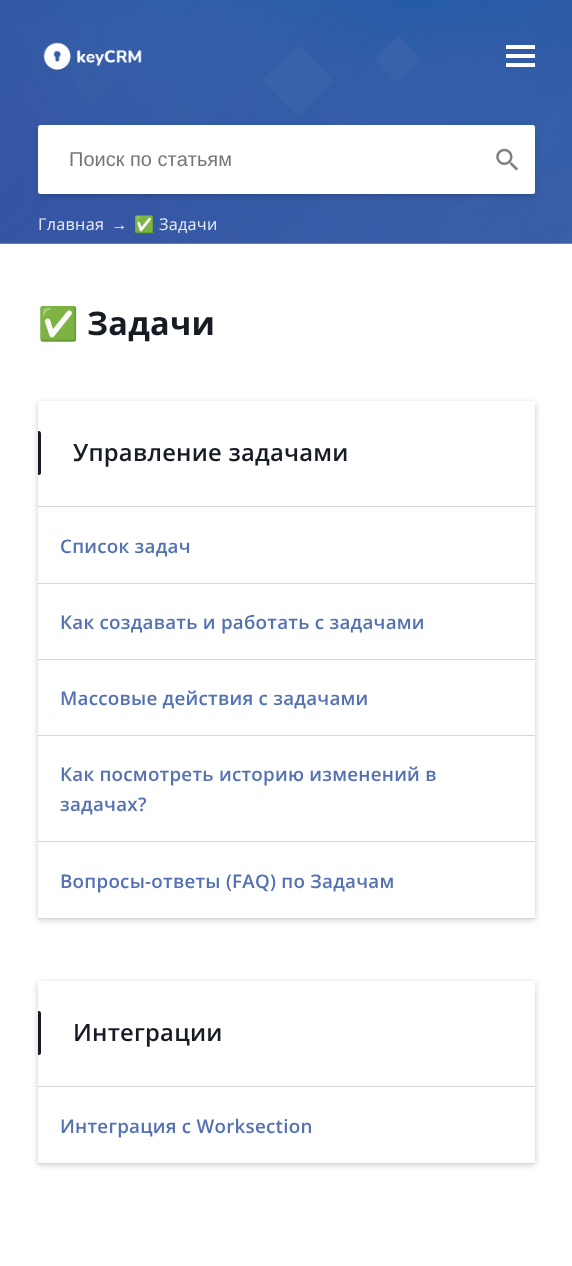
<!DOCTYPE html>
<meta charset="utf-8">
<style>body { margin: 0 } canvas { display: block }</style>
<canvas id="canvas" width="572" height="1266"></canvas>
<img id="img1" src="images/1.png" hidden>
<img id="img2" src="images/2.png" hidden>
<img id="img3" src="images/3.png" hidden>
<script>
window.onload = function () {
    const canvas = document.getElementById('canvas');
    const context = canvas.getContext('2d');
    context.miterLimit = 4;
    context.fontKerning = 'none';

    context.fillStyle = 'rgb(255, 255, 255)';
    context.fillRect(0, 0, 572, 1266);
    context.drawImage(document.getElementById('img1'), 0, 0, 572, 244);
    context.drawImage(document.getElementById('img2'), 43, 42, 99, 28);
    context.fillRect(506, 45, 29, 4);
    context.fillRect(506, 54, 29, 4);
    context.fillRect(506, 63, 29, 4);
    context.fillStyle = 'rgba(0, 0, 0, 0.06)';
    context.filter = 'blur(2.5px)';
    context.beginPath();
    context.roundRect(38, 129, 497, 69, 2.5);
    context.fill();
    context.filter = 'none';
    context.fillStyle = 'rgba(0, 0, 0, 0.12)';
    context.filter = 'blur(2px)';
    context.beginPath();
    context.rect(40, 131, 493, 64);
    context.fill();
    context.filter = 'none';
    context.fillStyle = 'rgb(255, 255, 255)';
    context.beginPath();
    context.roundRect(38, 125, 497, 69, 2.5);
    context.fill();
    context.drawImage(document.getElementById('img3'), 496, 148, 22, 23);
    context.save();
    context.beginPath();
    context.moveTo(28, 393);
    context.lineTo(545, 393);
    context.lineTo(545, 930);
    context.lineTo(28, 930);
    context.closePath();
    context.moveTo(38, 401);
    context.lineTo(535, 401);
    context.lineTo(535, 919);
    context.lineTo(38, 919);
    context.closePath();
    context.clip('evenodd');
    context.fillStyle = 'rgba(0, 0, 0, 0.2)';
    context.filter = 'blur(3px)';
    context.beginPath();
    context.rect(38, 403, 497, 517);
    context.fill();
    context.filter = 'none';
    context.restore();
    context.fillStyle = 'rgb(216, 216, 216)';
    context.fillRect(38, 506, 497, 1);
    context.fillStyle = 'rgb(23, 27, 36)';
    context.beginPath();
    context.roundRect(38, 431, 3, 44, [0, 2.5, 2.5, 0]);
    context.fill();
    context.fillStyle = 'rgb(216, 216, 216)';
    context.fillRect(38, 583, 497, 1);
    context.fillRect(38, 659, 497, 1);
    context.fillRect(38, 735, 497, 1);
    context.fillRect(38, 841, 497, 1);
    context.fillRect(38, 918, 497, 1);
    context.save();
    context.beginPath();
    context.moveTo(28, 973);
    context.lineTo(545, 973);
    context.lineTo(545, 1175);
    context.lineTo(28, 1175);
    context.closePath();
    context.moveTo(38, 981);
    context.lineTo(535, 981);
    context.lineTo(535, 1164);
    context.lineTo(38, 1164);
    context.closePath();
    context.clip('evenodd');
    context.fillStyle = 'rgba(0, 0, 0, 0.2)';
    context.filter = 'blur(3px)';
    context.beginPath();
    context.rect(38, 983, 497, 182);
    context.fill();
    context.filter = 'none';
    context.restore();
    context.fillRect(38, 1086, 497, 1);
    context.fillStyle = 'rgb(23, 27, 36)';
    context.beginPath();
    context.roundRect(38, 1011, 3, 44, [0, 2.5, 2.5, 0]);
    context.fill();
    context.fillStyle = 'rgb(216, 216, 216)';
    context.fillRect(38, 1163, 497, 1);
    context.font = '20px Liberation Sans';
    context.fillStyle = 'rgb(117, 117, 117)';
    context.fillText('Поиск по статьям', 69, 166);
    context.letterSpacing = '0.25px';
    context.font = '16.25px Open Sans';
    context.fillStyle = 'rgb(235, 238, 246)';
    context.fillText('Главная', 38, 230);
    context.font = '16.25px Liberation Sans';
    context.fillText('→', 111, 230);
    context.font = '16.25px Noto Color Emoji';
    context.fillText('✅', 134, 230);
    context.font = '16.25px Open Sans';
    context.fillText('Задачи', 159, 230);
    context.font = 'bold 32.5px Noto Color Emoji';
    context.fillStyle = 'rgb(23, 27, 36)';
    context.fillText('✅', 38, 335);
    context.font = 'bold 32.5px Open Sans';
    context.fillText('Задачи', 87, 335);
    context.font = '600 23.75px Open Sans';
    context.fillText('Управление задачами', 73, 461);
    context.font = '600 18.75px Open Sans';
    context.fillStyle = 'rgb(84, 113, 180)';
    context.fillText('Список задач', 60, 553);
    context.fillText('Как создавать и работать с задачами', 60, 629);
    context.fillText('Массовые действия с задачами', 60, 705);
    context.fillText('Как посмотреть историю изменений в', 60, 781);
    context.fillText('задачах?', 60, 811);
    context.fillText('Вопросы-ответы (FAQ) по Задачам', 60, 888);
    context.font = '600 23.75px Open Sans';
    context.fillStyle = 'rgb(23, 27, 36)';
    context.fillText('Интеграции', 73, 1041);
    context.font = '600 18.75px Open Sans';
    context.fillStyle = 'rgb(84, 113, 180)';
    context.fillText('Интеграция с Worksection', 60, 1133);
};
</script>
